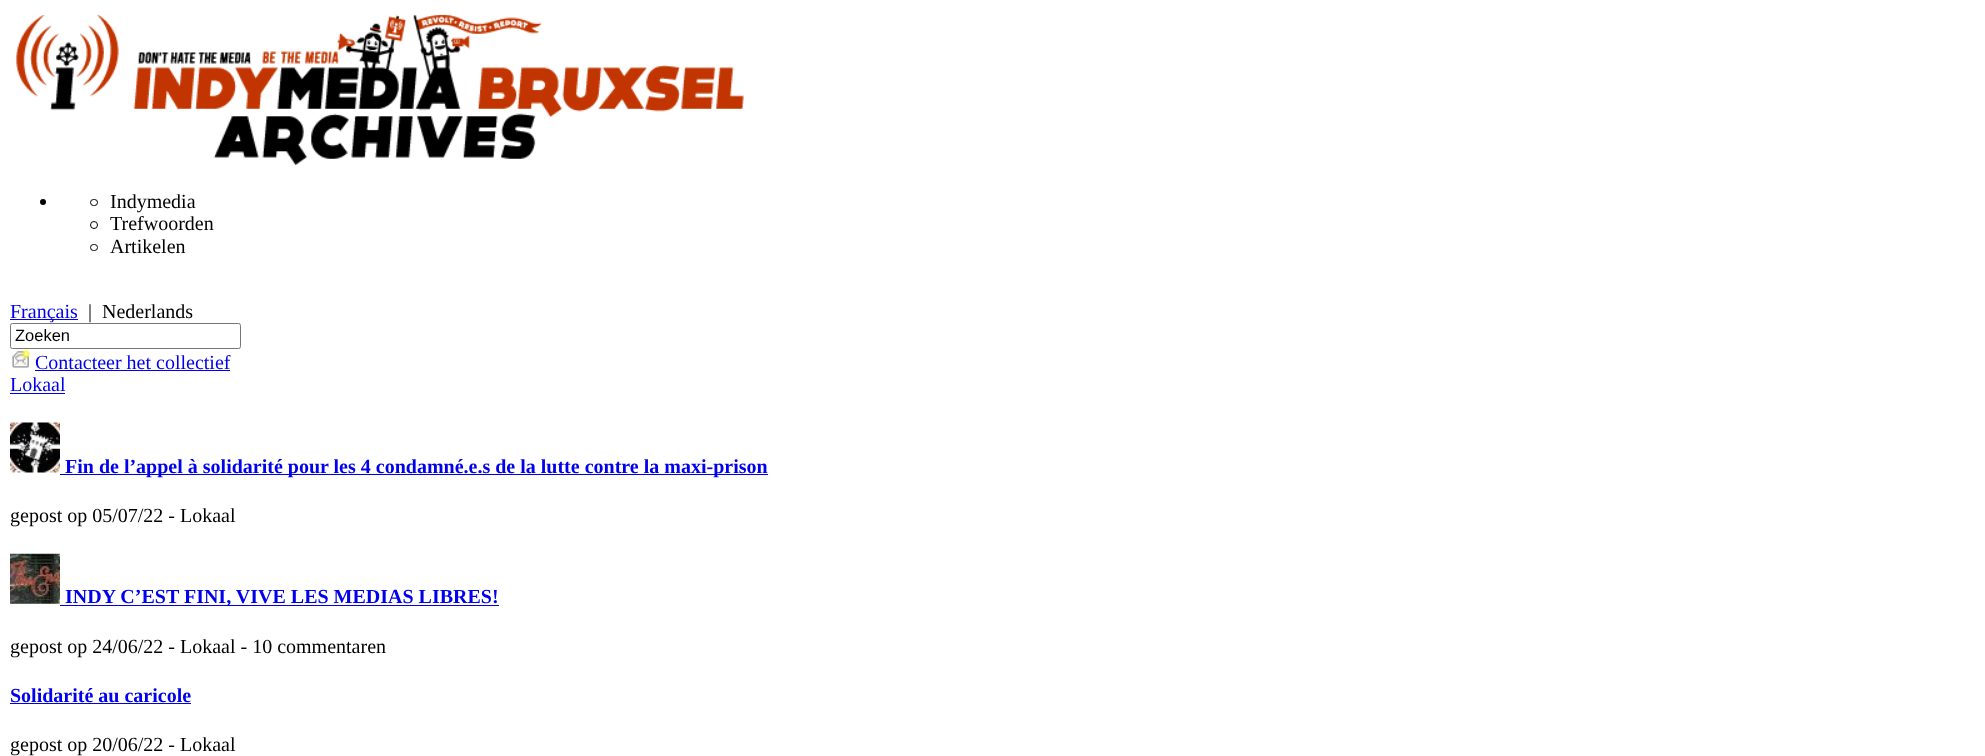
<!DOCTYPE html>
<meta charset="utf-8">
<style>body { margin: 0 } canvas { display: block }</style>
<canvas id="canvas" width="1985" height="756"></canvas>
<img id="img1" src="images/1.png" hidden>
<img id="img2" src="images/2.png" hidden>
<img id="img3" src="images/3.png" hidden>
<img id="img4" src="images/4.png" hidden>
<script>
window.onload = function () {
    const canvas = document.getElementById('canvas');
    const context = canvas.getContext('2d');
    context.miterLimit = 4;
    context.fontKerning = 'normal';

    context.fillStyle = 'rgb(255, 255, 255)';
    context.fillRect(0, 0, 1985, 756);
    context.drawImage(document.getElementById('img1'), 16, 14, 728, 151);
    context.fillStyle = 'rgb(0, 0, 0)';
    context.beginPath();
    context.arc(43, 202, 3, 0, 2 * Math.PI);
    context.fill();
    context.beginPath();
    context.roundRect(90.5, 199.5, 7, 6, 3);
    context.strokeStyle = 'rgb(0, 0, 0)';
    context.stroke();
    context.beginPath();
    context.arc(94, 225, 3.5, 0, 2 * Math.PI);
    context.stroke();
    context.beginPath();
    context.roundRect(90.5, 244.5, 7, 6, 3);
    context.stroke();
    context.fillStyle = 'rgb(0, 0, 238)';
    context.fillRect(10, 319, 68, 1);
    context.beginPath();
    context.roundRect(10.5, 323.5, 230, 25, 2);
    context.strokeStyle = 'rgb(118, 118, 118)';
    context.stroke();
    context.drawImage(document.getElementById('img2'), 12, 349, 18, 19);
    context.fillRect(35, 370, 195, 1);
    context.fillRect(10, 393, 55, 1);
    context.drawImage(document.getElementById('img3'), 10, 422, 50, 51);
    context.fillRect(60, 474, 708, 1);
    context.drawImage(document.getElementById('img4'), 10, 553, 50, 51);
    context.fillRect(60, 605, 439, 1);
    context.fillRect(10, 703, 181, 1);
    context.font = '20px Liberation Serif';
    context.fillStyle = 'rgb(0, 0, 0)';
    context.fillText('Indymedia', 110, 208);
    context.fillText('Trefwoorden', 110, 230);
    context.fillText('Artikelen', 110, 253);
    context.fillStyle = 'rgb(0, 0, 238)';
    context.fillText('Français', 10, 318);
    context.fillStyle = 'rgb(0, 0, 0)';
    context.fillText('|', 88, 318);
    context.fillText('Nederlands', 102, 318);
    context.font = '16.5px Liberation Sans';
    context.fillText('Zoeken', 15, 341);
    context.font = '20px Liberation Serif';
    context.fillStyle = 'rgb(0, 0, 238)';
    context.fillText('Contacteer het collectief', 35, 369);
    context.fillText('Lokaal', 10, 391);
    context.font = 'bold 20px Liberation Serif';
    context.fillText('Fin de l’appel à solidarité pour les 4 condamné.e.s de la lutte contre la maxi-prison', 65, 473);
    context.font = '20px Liberation Serif';
    context.fillStyle = 'rgb(0, 0, 0)';
    context.fillText('gepost op 05/07/22 - Lokaal', 10, 522);
    context.font = 'bold 20px Liberation Serif';
    context.fillStyle = 'rgb(0, 0, 238)';
    context.fillText('INDY C’EST FINI, VIVE LES MEDIAS LIBRES!', 65, 603);
    context.font = '20px Liberation Serif';
    context.fillStyle = 'rgb(0, 0, 0)';
    context.fillText('gepost op 24/06/22 - Lokaal - 10 commentaren', 10, 653);
    context.font = 'bold 20px Liberation Serif';
    context.fillStyle = 'rgb(0, 0, 238)';
    context.fillText('Solidarité au caricole', 10, 702);
    context.font = '20px Liberation Serif';
    context.fillStyle = 'rgb(0, 0, 0)';
    context.fillText('gepost op 20/06/22 - Lokaal', 10, 751);
};
</script>
